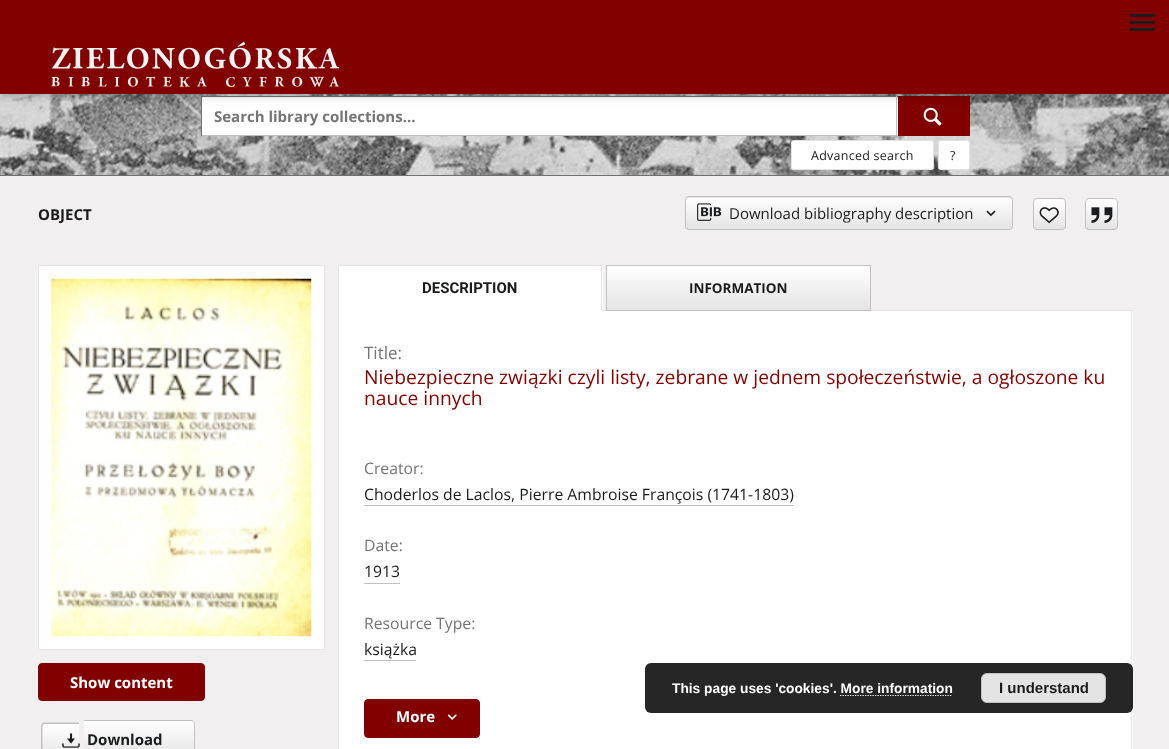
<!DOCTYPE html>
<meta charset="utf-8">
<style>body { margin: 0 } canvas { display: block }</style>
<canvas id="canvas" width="1169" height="749"></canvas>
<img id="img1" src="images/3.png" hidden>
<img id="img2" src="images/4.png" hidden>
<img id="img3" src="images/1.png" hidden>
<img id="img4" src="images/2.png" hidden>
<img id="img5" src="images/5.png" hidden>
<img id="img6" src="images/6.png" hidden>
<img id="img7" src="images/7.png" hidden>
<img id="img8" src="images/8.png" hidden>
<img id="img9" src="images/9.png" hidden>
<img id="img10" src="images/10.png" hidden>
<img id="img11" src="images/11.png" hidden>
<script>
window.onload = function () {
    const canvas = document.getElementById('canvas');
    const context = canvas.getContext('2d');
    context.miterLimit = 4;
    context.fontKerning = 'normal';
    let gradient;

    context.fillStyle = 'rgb(241, 239, 239)';
    context.fillRect(0, 0, 1169, 749);
    context.drawImage(document.getElementById('img1'), 0, 94, 1169, 81);
    context.fillStyle = 'rgb(255, 255, 255)';
    context.fillRect(202, 97, 696, 38);
    context.fillStyle = 'rgb(112, 112, 112)';
    context.fillRect(201, 96, 697, 1);
    context.fillStyle = 'rgb(193, 193, 193)';
    context.fillRect(896, 96, 1, 40);
    context.fillRect(201, 135, 697, 1);
    context.fillStyle = 'rgb(112, 112, 112)';
    context.fillRect(201, 96, 1, 40);
    context.fillStyle = 'rgb(129, 1, 0)';
    context.fillRect(898, 96, 72, 40);
    context.drawImage(document.getElementById('img2'), 923, 107, 19, 19);
    context.fillStyle = 'rgba(0, 0, 0, 0.08)';
    context.filter = 'blur(6px)';
    context.beginPath();
    context.rect(0, 1, 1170, 94);
    context.fill();
    context.filter = 'none';
    context.fillStyle = 'rgba(0, 0, 0, 0.06)';
    context.filter = 'blur(3px)';
    context.beginPath();
    context.rect(0, 5, 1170, 94);
    context.fill();
    context.filter = 'none';
    context.filter = 'blur(2.5px)';
    context.beginPath();
    context.rect(1, 4, 1168, 91);
    context.fill();
    context.filter = 'none';
    context.fillStyle = 'rgb(129, 1, 0)';
    context.fillRect(0, 0, 1169, 94);
    context.drawImage(document.getElementById('img3'), 1129, 13, 26, 18);
    context.drawImage(document.getElementById('img4'), 51, 42, 289, 45);
    context.fillStyle = 'rgb(112, 112, 112)';
    context.fillRect(0, 175, 1169, 1);
    context.fillStyle = 'rgb(255, 255, 255)';
    context.beginPath();
    context.roundRect(791.5, 140.5, 142, 29, 2);
    context.fill();
    context.strokeStyle = 'rgb(226, 226, 226)';
    context.stroke();
    context.beginPath();
    context.roundRect(938.5, 140.5, 31, 29, 2);
    context.fill();
    context.stroke();
    context.save();
    context.beginPath();
    context.roundRect(685, 196, 328, 34, 4);
    context.clip();
    gradient = context.createLinearGradient(849, 166, 849, 198);
    gradient.addColorStop(0, 'rgb(255, 255, 255)');
    gradient.addColorStop(1, 'rgb(228, 228, 228)');
    context.fillStyle = gradient;
    context.fillRect(685, 196, 328, 2);
    gradient = context.createLinearGradient(849, 197, 849, 229);
    gradient.addColorStop(0, 'rgb(255, 255, 255)');
    gradient.addColorStop(1, 'rgb(228, 228, 228)');
    context.fillStyle = gradient;
    context.fillRect(685, 198, 328, 31);
    context.restore();
    context.beginPath();
    context.roundRect(685.5, 196.5, 327, 33, 3.5);
    context.strokeStyle = 'rgb(193, 193, 193)';
    context.stroke();
    context.drawImage(document.getElementById('img5'), 697, 203, 25, 18);
    context.drawImage(document.getElementById('img6'), 986, 210, 10, 7);
    context.save();
    context.beginPath();
    context.roundRect(1033, 198, 33, 32, 4);
    context.clip();
    gradient = context.createLinearGradient(1049, 199, 1049, 229);
    gradient.addColorStop(0, 'rgb(255, 255, 255)');
    gradient.addColorStop(1, 'rgb(228, 228, 228)');
    context.fillStyle = gradient;
    context.fillRect(1033, 199, 33, 30);
    context.restore();
    context.beginPath();
    context.roundRect(1033.5, 198.5, 32, 31, 3.5);
    context.stroke();
    context.drawImage(document.getElementById('img7'), 1039, 207, 20, 17);
    context.save();
    context.beginPath();
    context.roundRect(1085, 198, 33, 32, 4);
    context.clip();
    gradient = context.createLinearGradient(1101, 199, 1101, 229);
    gradient.addColorStop(0, 'rgb(255, 255, 255)');
    gradient.addColorStop(1, 'rgb(228, 228, 228)');
    context.fillStyle = gradient;
    context.fillRect(1085, 199, 33, 30);
    context.restore();
    context.beginPath();
    context.roundRect(1085.5, 198.5, 32, 31, 3.5);
    context.stroke();
    context.drawImage(document.getElementById('img8'), 1091, 207, 22, 16);
    context.beginPath();
    context.rect(38.5, 265.5, 286, 384);
    context.fill();
    context.strokeStyle = 'rgb(228, 228, 228)';
    context.stroke();
    context.drawImage(document.getElementById('img9'), 51, 278, 261, 359);
    context.fillStyle = 'rgb(129, 1, 0)';
    context.beginPath();
    context.roundRect(38.5, 663.5, 166, 37, 3.5);
    context.fill();
    context.strokeStyle = 'rgb(129, 1, 0)';
    context.stroke();
    context.save();
    context.beginPath();
    context.moveTo(45, 723);
    context.lineTo(79, 723);
    context.lineTo(79, 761);
    context.lineTo(45, 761);
    context.bezierCurveTo(43, 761, 41, 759, 41, 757);
    context.lineTo(41, 727);
    context.bezierCurveTo(41, 725, 43, 723, 45, 723);
    context.closePath();
    context.clip();
    gradient = context.createLinearGradient(61, 724, 61, 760);
    gradient.addColorStop(0, 'rgb(255, 255, 255)');
    gradient.addColorStop(1, 'rgb(228, 228, 228)');
    context.fillStyle = gradient;
    context.fillRect(41, 724, 38, 25);
    context.restore();
    context.fillStyle = 'rgb(193, 193, 193)';
    context.beginPath();
    context.moveTo(45, 722.5);
    context.lineTo(79, 722.5);
    context.lineTo(79, 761);
    context.lineTo(45, 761);
    context.bezierCurveTo(43, 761, 41, 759.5, 41, 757.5);
    context.lineTo(41, 726);
    context.bezierCurveTo(41, 724, 43, 722.5, 45, 722.5);
    context.closePath();
    context.moveTo(45, 724);
    context.lineTo(79, 724);
    context.lineTo(79, 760);
    context.lineTo(45, 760);
    context.bezierCurveTo(43.5, 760, 42.5, 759, 42.5, 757.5);
    context.lineTo(42.5, 726);
    context.bezierCurveTo(42.5, 725, 43.5, 724, 45, 724);
    context.closePath();
    context.fill('evenodd');
    context.save();
    context.beginPath();
    context.moveTo(84, 720);
    context.lineTo(191, 720);
    context.bezierCurveTo(193, 720, 195, 722, 195, 724);
    context.lineTo(195, 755);
    context.bezierCurveTo(195, 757, 193, 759, 191, 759);
    context.lineTo(84, 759);
    context.closePath();
    context.clip();
    gradient = context.createLinearGradient(139, 721, 139, 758);
    gradient.addColorStop(0, 'rgb(255, 255, 255)');
    gradient.addColorStop(1, 'rgb(228, 228, 228)');
    context.fillStyle = gradient;
    context.fillRect(84, 721, 111, 28);
    context.restore();
    context.beginPath();
    context.moveTo(84, 720);
    context.lineTo(191, 720);
    context.bezierCurveTo(193, 720, 195, 722, 195, 724);
    context.lineTo(195, 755);
    context.bezierCurveTo(195, 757, 193, 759, 191, 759);
    context.lineTo(84, 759);
    context.closePath();
    context.moveTo(84, 721);
    context.lineTo(191, 721);
    context.bezierCurveTo(193, 721, 194, 722, 194, 724);
    context.lineTo(194, 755);
    context.bezierCurveTo(194, 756, 193, 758, 191, 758);
    context.lineTo(84, 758);
    context.closePath();
    context.fill('evenodd');
    context.drawImage(document.getElementById('img10'), 62, 733, 18, 15);
    context.fillStyle = 'rgb(228, 228, 228)';
    context.fillRect(603, 310, 530, 1);
    context.fillStyle = 'rgb(255, 255, 255)';
    context.fillRect(338, 266, 265, 45);
    context.fillStyle = 'rgb(228, 228, 228)';
    context.fillRect(338, 265, 265, 1);
    context.beginPath();
    context.moveTo(602, 265);
    context.lineTo(602, 311);
    context.lineTo(601, 310);
    context.lineTo(601, 266);
    context.closePath();
    context.fill();
    context.beginPath();
    context.moveTo(338, 311);
    context.lineTo(338, 265);
    context.lineTo(339, 266);
    context.lineTo(339, 310);
    context.closePath();
    context.fill();
    gradient = context.createLinearGradient(739, 266, 739, 310);
    gradient.addColorStop(0, 'rgb(255, 255, 255)');
    gradient.addColorStop(1, 'rgb(228, 228, 228)');
    context.fillStyle = gradient;
    context.fillRect(607, 266, 263, 44);
    context.strokeStyle = 'rgb(193, 193, 193)';
    context.strokeRect(606.5, 265.5, 264, 45);
    context.fillStyle = 'rgb(255, 255, 255)';
    context.fillRect(339, 311, 794, 438);
    context.fillStyle = 'rgb(228, 228, 228)';
    context.fillRect(1131, 311, 1, 438);
    context.fillRect(338, 311, 1, 438);
    context.fillStyle = 'rgb(193, 193, 193)';
    context.fillRect(364, 505, 430, 1);
    context.fillRect(364, 583, 36, 1);
    context.fillRect(364, 660, 52, 1);
    context.fillStyle = 'rgb(129, 1, 0)';
    context.beginPath();
    context.roundRect(364.5, 699.5, 115, 38, 3.5);
    context.fill();
    context.strokeStyle = 'rgb(129, 1, 0)';
    context.stroke();
    context.drawImage(document.getElementById('img11'), 447, 714, 10, 6);
    context.fillStyle = 'rgba(0, 0, 0, 0.85)';
    context.beginPath();
    context.roundRect(645, 663, 488, 50, 6);
    context.fill();
    context.fillStyle = 'rgb(228, 228, 228)';
    context.beginPath();
    context.roundRect(981.5, 673.5, 124, 29, 5.5);
    context.fill();
    context.strokeStyle = 'rgb(193, 193, 193)';
    context.stroke();
    context.beginPath();
    context.moveTo(840, 695.5);
    context.lineTo(952.5, 695.5);
    context.strokeStyle = 'rgb(255, 255, 255)';
    context.lineWidth = 1.2;
    context.setLineDash([1.25, 1.25]);
    context.stroke();
    context.font = 'bold 15px Open Sans';
    context.fillStyle = 'rgb(117, 117, 117)';
    context.fillText('Search library collections...', 214, 122);
    context.letterSpacing = '0.25px';
    context.font = '12.5px Open Sans';
    context.fillStyle = 'rgb(26, 27, 28)';
    context.fillText('Advanced search', 811, 160);
    context.letterSpacing = '0px';
    context.fillText('?', 950, 160);
    context.font = 'bold 15px Open Sans';
    context.fillText('OBJECT', 38, 220);
    context.font = '15px Open Sans';
    context.fillText('Download bibliography description', 729, 219);
    context.font = 'bold 15px Open Sans';
    context.fillStyle = 'rgb(255, 255, 255)';
    context.fillText('Show content', 70, 688);
    context.fillStyle = 'rgb(26, 27, 28)';
    context.fillText('Download', 87, 745);
    context.font = 'bold 15px Roboto';
    context.fillText('DESCRIPTION', 422, 293);
    context.font = 'bold 13.5px Open Sans';
    context.fillText('INFORMATION', 689, 293);
    context.font = '17px Open Sans';
    context.fillStyle = 'rgb(117, 117, 117)';
    context.fillText('Title:', 364, 359);
    context.font = '19.25px Open Sans';
    context.fillStyle = 'rgb(129, 1, 0)';
    context.fillText('Niebezpieczne związki czyli listy, zebrane w jednem społeczeństwie, a ogłoszone ku', 364, 384);
    context.fillText('nauce innych', 364, 405);
    context.font = '15.75px Open Sans';
    context.fillStyle = 'rgb(117, 117, 117)';
    context.fillText('Creator:', 364, 474);
    context.fillStyle = 'rgb(26, 27, 28)';
    context.fillText('Choderlos de Laclos, Pierre Ambroise François (1741-1803)', 364, 500);
    context.fillStyle = 'rgb(117, 117, 117)';
    context.fillText('Date:', 364, 551);
    context.fillStyle = 'rgb(26, 27, 28)';
    context.fillText('1913', 364, 577);
    context.fillStyle = 'rgb(117, 117, 117)';
    context.fillText('Resource Type:', 364, 629);
    context.fillStyle = 'rgb(26, 27, 28)';
    context.fillText('książka', 364, 655);
    context.font = 'bold 15px Open Sans';
    context.fillStyle = 'rgb(255, 255, 255)';
    context.fillText('More', 396, 722);
    context.font = 'bold 13.75px Liberation Sans';
    context.fillText('This page uses \'cookies\'. More information', 672, 693);
    context.font = 'bold 15px Liberation Sans';
    context.fillStyle = 'rgb(26, 27, 28)';
    context.fillText('I understand', 999, 693);
};
</script>
